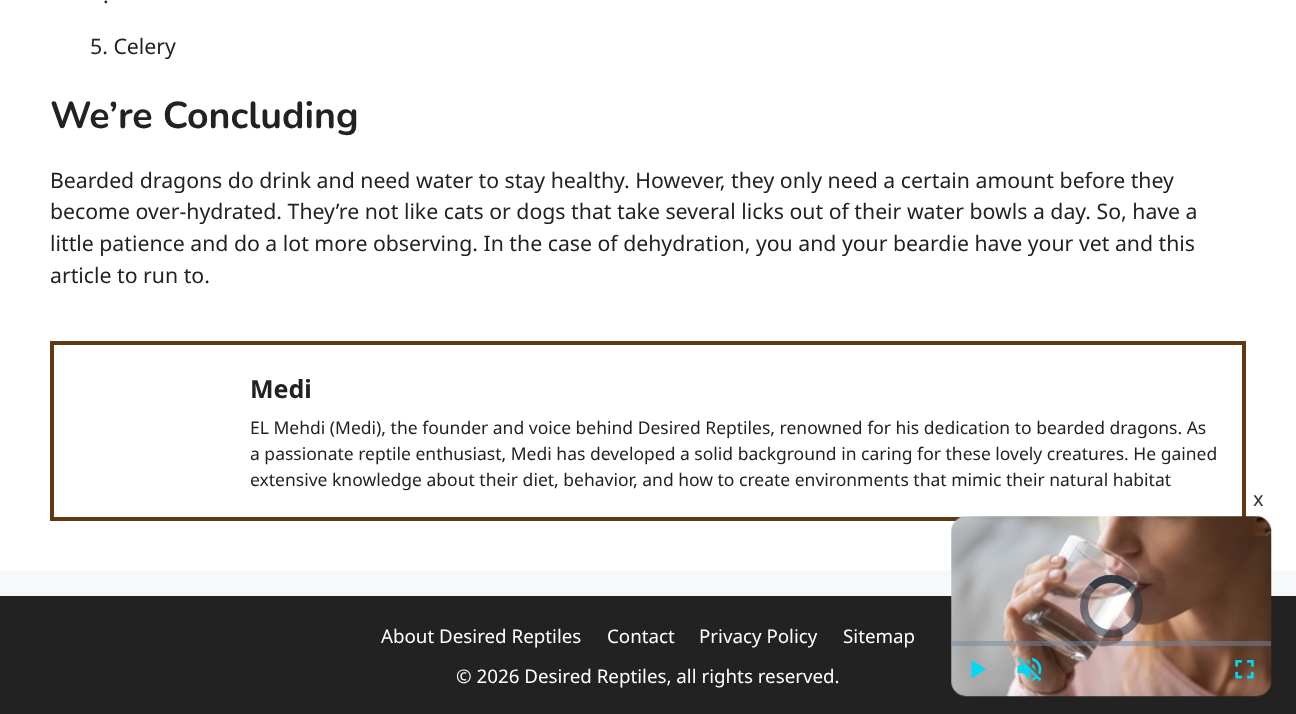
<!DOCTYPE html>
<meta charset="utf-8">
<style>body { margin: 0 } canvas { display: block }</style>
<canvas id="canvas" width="1296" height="714"></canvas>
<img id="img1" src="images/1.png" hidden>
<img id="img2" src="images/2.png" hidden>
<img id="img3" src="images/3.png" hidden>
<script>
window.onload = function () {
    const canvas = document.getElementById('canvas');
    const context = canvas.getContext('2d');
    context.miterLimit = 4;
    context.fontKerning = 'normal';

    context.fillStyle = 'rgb(247, 248, 249)';
    context.fillRect(0, 0, 1296, 714);
    context.fillStyle = 'rgb(255, 255, 255)';
    context.fillRect(0, 0, 1296, 571);
    context.strokeStyle = 'rgb(96, 57, 19)';
    context.lineWidth = 4;
    context.strokeRect(52, 343, 1192, 176);
    context.fillStyle = 'rgb(34, 34, 34)';
    context.fillRect(0, 596, 1296, 118);
    context.drawImage(document.getElementById('img1'), 951, 516, 321, 181);
    context.beginPath();
    context.arc(1111.5, 606.5, 27.5, 0, 2 * Math.PI);
    context.strokeStyle = 'rgba(43, 51, 63, 0.59)';
    context.lineWidth = 8;
    context.stroke();
    context.beginPath();
    context.moveTo(1092, 587);
    context.bezierCurveTo(1102.5, 576, 1120, 576, 1130.5, 587);
    context.lineWidth = 7.5;
    context.stroke();
    context.beginPath();
    context.moveTo(1092, 587);
    context.bezierCurveTo(1102.5, 576, 1120, 576, 1130.5, 587);
    context.stroke();
    context.fillStyle = 'rgba(115, 133, 159, 0.5)';
    context.fillRect(951, 641, 320, 5);
    context.fillStyle = 'rgb(3, 216, 243)';
    context.beginPath();
    context.moveTo(971.5, 660);
    context.lineTo(971.5, 678.5);
    context.lineTo(986, 669);
    context.closePath();
    context.fill();
    context.drawImage(document.getElementById('img2'), 1017, 657, 25, 24);
    context.drawImage(document.getElementById('img3'), 1235, 660, 19, 19);
    context.font = '21.25px Noto Sans';
    context.fillStyle = 'rgb(34, 34, 34)';
    context.fillText('.', 103, 3);
    context.fillText('5. Celery', 90, 54);
    context.font = 'bold 37.5px Nunito';
    context.fillText('We’re Concluding', 50, 128);
    context.font = '21.25px Noto Sans';
    context.fillText('Bearded dragons do drink and need water to stay healthy. However, they only need a certain amount before they', 50, 188);
    context.fillText('become over-hydrated. They’re not like cats or dogs that take several licks out of their water bowls a day. So, have a', 50, 219);
    context.fillText('little patience and do a lot more observing. In the case of dehydration, you and your beardie have your vet and this', 50, 251);
    context.fillText('article to run to.', 50, 283);
    context.font = 'bold 25px Noto Sans';
    context.fillText('Medi', 250, 398);
    context.font = '17.5px Noto Sans';
    context.fillText('EL Mehdi (Medi), the founder and voice behind Desired Reptiles, renowned for his dedication to bearded dragons. As', 250, 434);
    context.fillText('a passionate reptile enthusiast, Medi has developed a solid background in caring for these lovely creatures. He gained', 250, 460);
    context.fillText('extensive knowledge about their diet, behavior, and how to create environments that mimic their natural habitat', 250, 486);
    context.font = '20px Noto Sans';
    context.fillStyle = 'rgb(51, 51, 51)';
    context.fillText('x', 1253, 506);
    context.font = '18.75px Noto Sans';
    context.fillStyle = 'rgb(255, 255, 255)';
    context.fillText('About Desired Reptiles', 381, 643);
    context.fillText('Contact', 607, 643);
    context.fillText('Privacy Policy', 699, 643);
    context.fillText('Sitemap', 843, 643);
    context.fillText('© 2026 Desired Reptiles, all rights reserved.', 456, 683);
};
</script>
